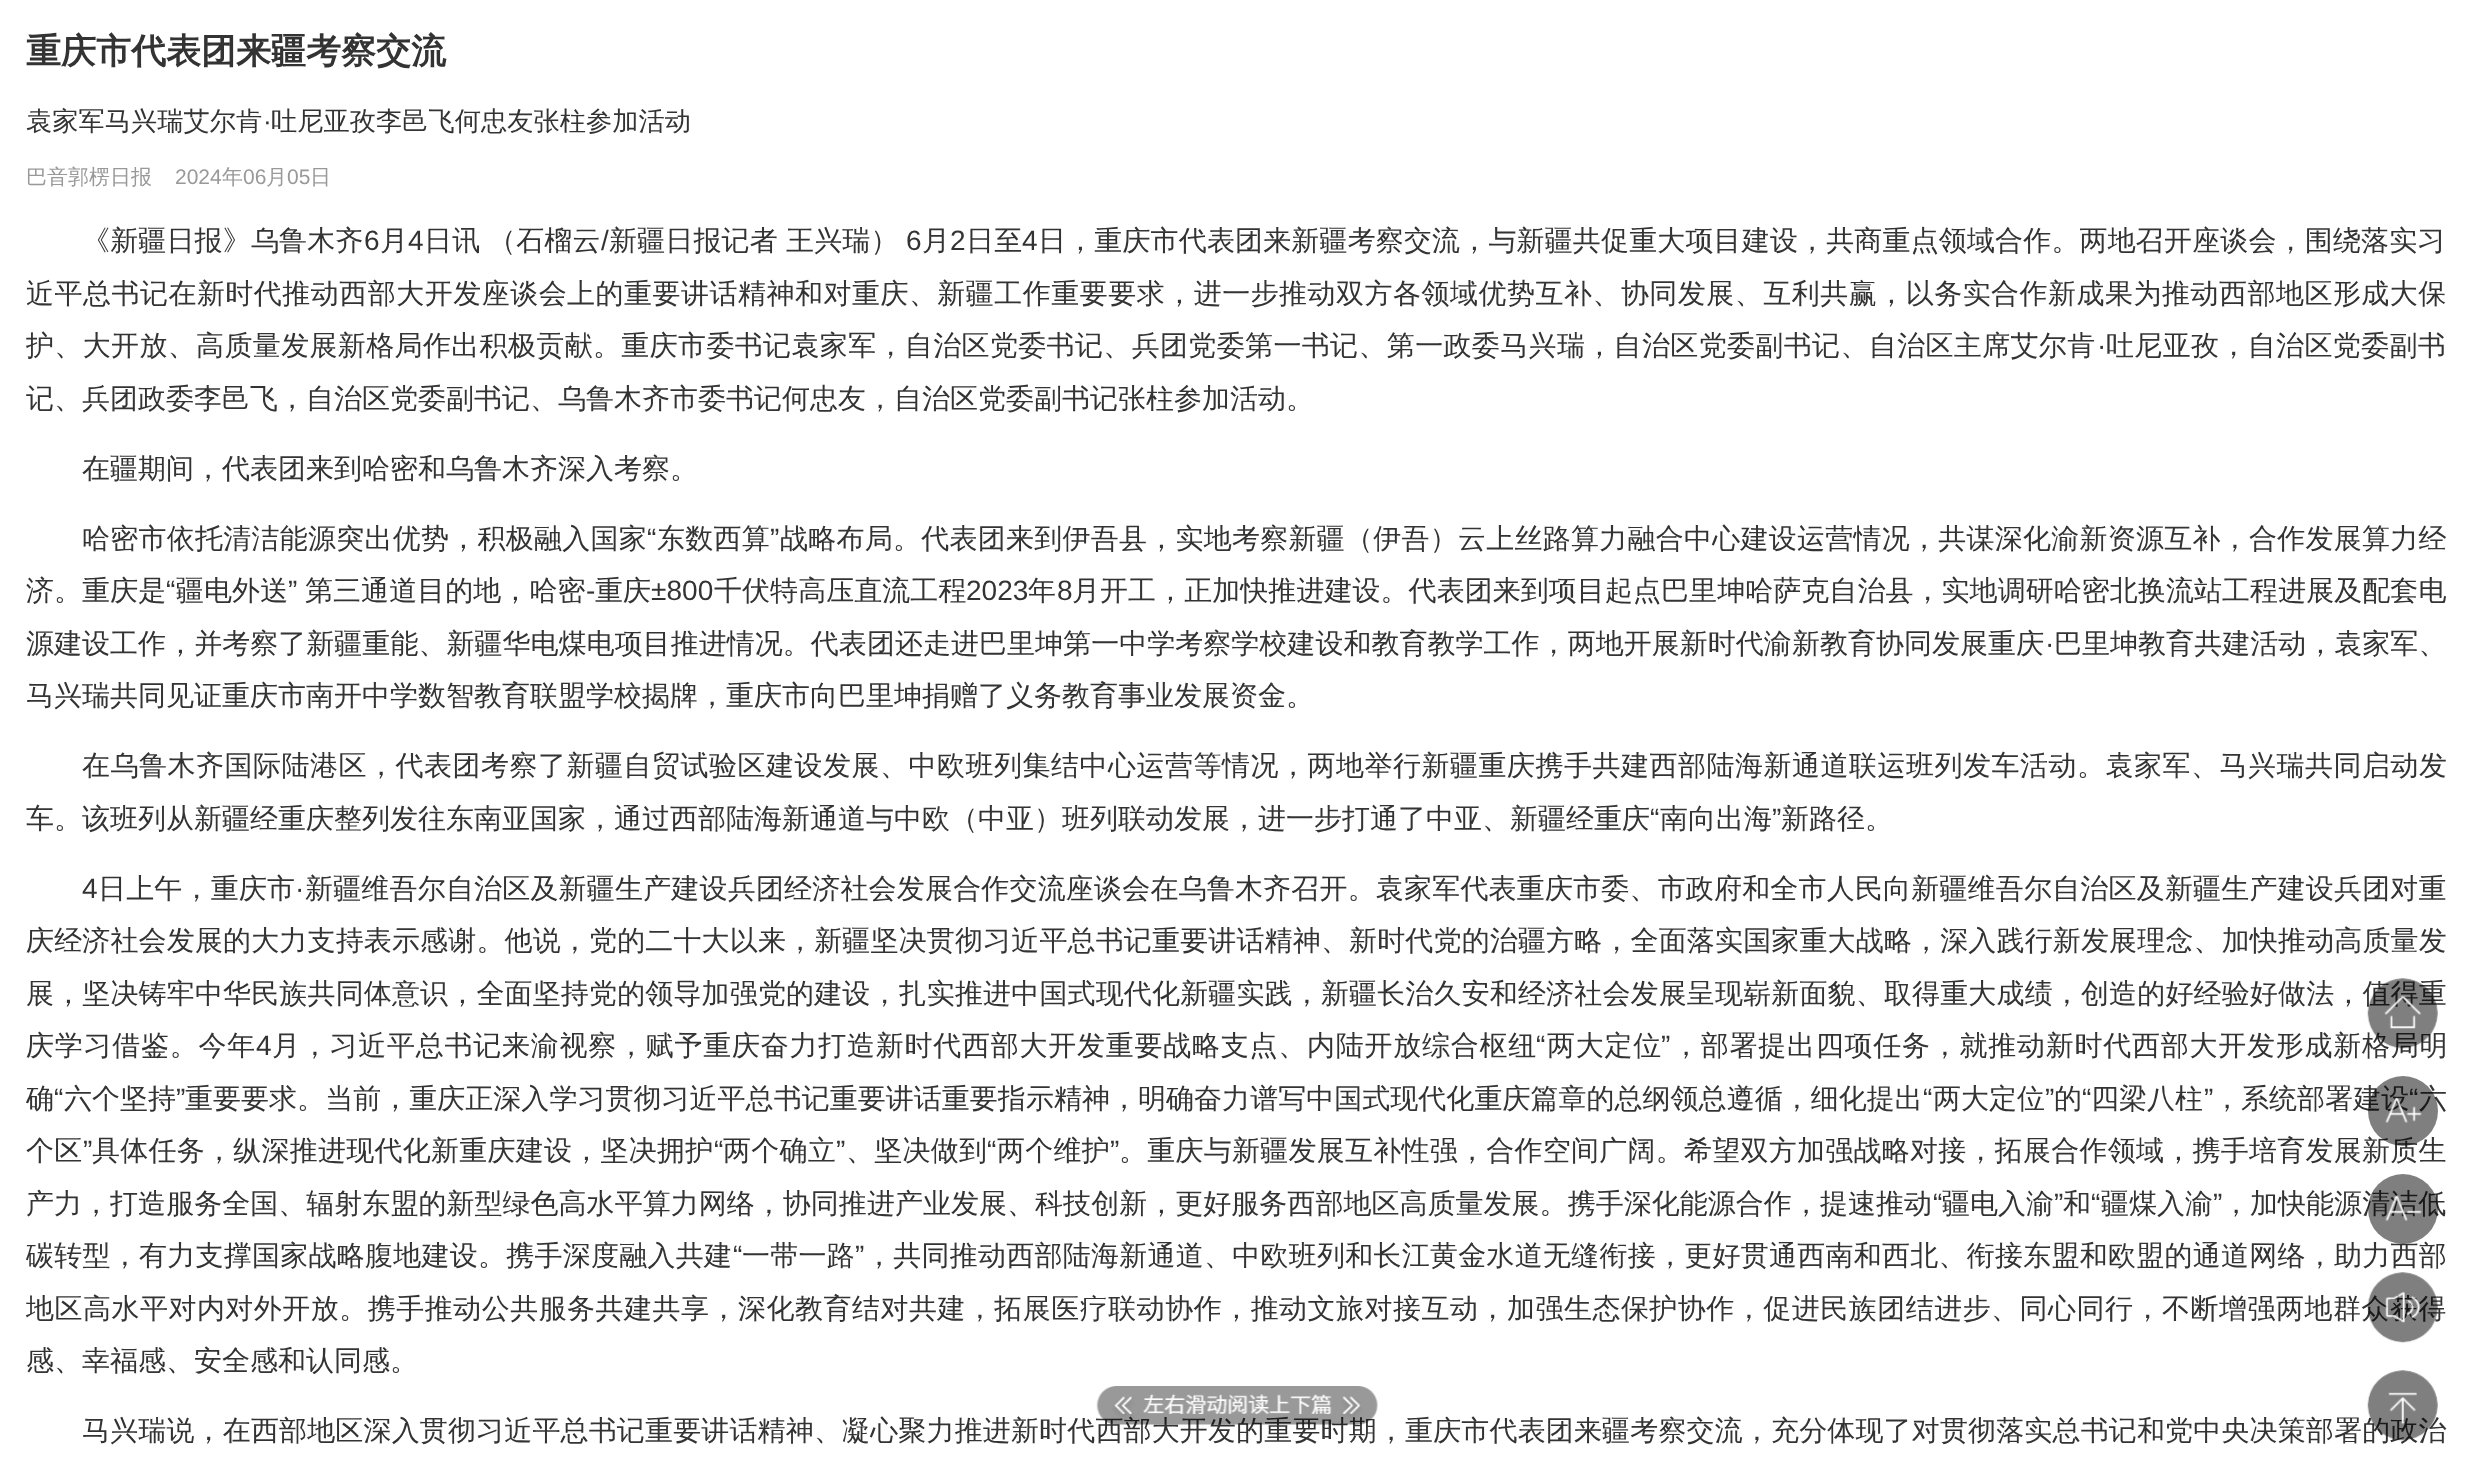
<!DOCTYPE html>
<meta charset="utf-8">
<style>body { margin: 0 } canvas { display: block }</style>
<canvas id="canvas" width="2472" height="1468"></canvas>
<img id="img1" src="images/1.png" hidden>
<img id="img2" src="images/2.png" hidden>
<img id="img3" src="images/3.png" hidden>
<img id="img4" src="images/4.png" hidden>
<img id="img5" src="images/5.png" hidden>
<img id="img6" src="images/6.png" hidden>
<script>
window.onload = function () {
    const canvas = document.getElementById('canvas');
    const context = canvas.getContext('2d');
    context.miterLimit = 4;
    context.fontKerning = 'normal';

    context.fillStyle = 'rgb(255, 255, 255)';
    context.fillRect(0, 0, 2472, 1468);
    context.font = 'bold 35px WenQuanYi Zen Hei';
    context.fillStyle = 'rgb(51, 51, 51)';
    context.fillText('重庆市代表团来疆考察交流', 26, 63);
    context.font = '500 26.25px WenQuanYi Zen Hei';
    context.fillText('袁家军马兴瑞艾尔肯', 26, 130);
    context.font = '26.25px Liberation Sans';
    context.fillText('·', 263, 130);
    context.font = '500 26.25px WenQuanYi Zen Hei';
    context.fillText('吐尼亚孜李邑飞何忠友张柱参加活动', 271, 130);
    context.font = '500 21px WenQuanYi Zen Hei';
    context.fillStyle = 'rgb(153, 153, 153)';
    context.fillText('巴音郭楞日报', 26, 184);
    context.font = '21px Liberation Sans';
    context.fillText('2024', 175, 184);
    context.font = '500 21px WenQuanYi Zen Hei';
    context.fillText('年', 222, 184);
    context.font = '21px Liberation Sans';
    context.fillText('06', 243, 184);
    context.font = '500 21px WenQuanYi Zen Hei';
    context.fillText('月', 266, 184);
    context.font = '21px Liberation Sans';
    context.fillText('05', 287, 184);
    context.font = '500 21px WenQuanYi Zen Hei';
    context.fillText('日', 310, 184);
    context.letterSpacing = '0.15px';
    context.font = '500 28px WenQuanYi Zen Hei';
    context.fillStyle = 'rgb(51, 51, 51)';
    context.fillText('《新疆日报》乌鲁木齐', 82, 250);
    context.font = '28px Liberation Sans';
    context.fillText('6', 364, 250);
    context.font = '500 28px WenQuanYi Zen Hei';
    context.fillText('月', 380, 250);
    context.font = '28px Liberation Sans';
    context.fillText('4', 408, 250);
    context.font = '500 28px WenQuanYi Zen Hei';
    context.fillText('日讯', 424, 250);
    context.fillText('（石榴云', 488, 250);
    context.font = '28px Liberation Sans';
    context.fillText('/', 601, 250);
    context.font = '500 28px WenQuanYi Zen Hei';
    context.fillText('新疆日报记者', 609, 250);
    context.fillText('王兴瑞）', 786, 250);
    context.font = '28px Liberation Sans';
    context.fillText('6', 906, 250);
    context.font = '500 28px WenQuanYi Zen Hei';
    context.fillText('月', 922, 250);
    context.font = '28px Liberation Sans';
    context.fillText('2', 950, 250);
    context.font = '500 28px WenQuanYi Zen Hei';
    context.fillText('日至', 966, 250);
    context.font = '28px Liberation Sans';
    context.fillText('4', 1022, 250);
    context.font = '500 28px WenQuanYi Zen Hei';
    context.fillText('日，重庆市代表团来新疆考察交流，与新疆共促重大项目建设，共商重点领域合作。两地召开座谈会，围绕落实习', 1038, 250);
    context.letterSpacing = '0.48px';
    context.fillText('近平总书记在新时代推动西部大开发座谈会上的重要讲话精神和对重庆、新疆工作重要要求，进一步推动双方各领域优势互补、协同发展、互利共赢，以务实合作新成果为推动西部地区形成大保', 26, 303);
    context.letterSpacing = '0.35px';
    context.fillText('护、大开放、高质量发展新格局作出积极贡献。重庆市委书记袁家军，自治区党委书记、兵团党委第一书记、第一政委马兴瑞，自治区党委副书记、自治区主席艾尔肯', 26, 355);
    context.font = '28px Liberation Sans';
    context.fillText('·', 2097, 355);
    context.font = '500 28px WenQuanYi Zen Hei';
    context.fillText('吐尼亚孜，自治区党委副书', 2106, 355);
    context.letterSpacing = '0px';
    context.fillText('记、兵团政委李邑飞，自治区党委副书记、乌鲁木齐市委书记何忠友，自治区党委副书记张柱参加活动。', 26, 408);
    context.fillText('在疆期间，代表团来到哈密和乌鲁木齐深入考察。', 82, 478);
    context.letterSpacing = '0.25px';
    context.fillText('哈密市依托清洁能源突出优势，积极融入国家', 82, 548);
    context.font = '28px Liberation Sans';
    context.fillText('“', 647, 548);
    context.font = '500 28px WenQuanYi Zen Hei';
    context.fillText('东数西算', 657, 548);
    context.font = '28px Liberation Sans';
    context.fillText('”', 770, 548);
    context.font = '500 28px WenQuanYi Zen Hei';
    context.fillText('战略布局。代表团来到伊吾县，实地考察新疆（伊吾）云上丝路算力融合中心建设运营情况，共谋深化渝新资源互补，合作发展算力经', 780, 548);
    context.letterSpacing = '0.05px';
    context.fillText('济。重庆是', 26, 600);
    context.font = '28px Liberation Sans';
    context.fillText('“', 166, 600);
    context.font = '500 28px WenQuanYi Zen Hei';
    context.fillText('疆电外送', 176, 600);
    context.font = '28px Liberation Sans';
    context.fillText('”', 288, 600);
    context.font = '500 28px WenQuanYi Zen Hei';
    context.fillText('第三通道目的地，哈密', 305, 600);
    context.font = '28px Liberation Sans';
    context.fillText('-', 586, 600);
    context.font = '500 28px WenQuanYi Zen Hei';
    context.fillText('重庆', 595, 600);
    context.font = '28px Liberation Sans';
    context.fillText('±800', 651, 600);
    context.font = '500 28px WenQuanYi Zen Hei';
    context.fillText('千伏特高压直流工程', 714, 600);
    context.font = '28px Liberation Sans';
    context.fillText('2023', 966, 600);
    context.font = '500 28px WenQuanYi Zen Hei';
    context.fillText('年', 1028, 600);
    context.font = '28px Liberation Sans';
    context.fillText('8', 1057, 600);
    context.font = '500 28px WenQuanYi Zen Hei';
    context.fillText('月开工，正加快推进建设。代表团来到项目起点巴里坤哈萨克自治县，实地调研哈密北换流站工程进展及配套电', 1072, 600);
    context.letterSpacing = '0.03px';
    context.fillText('源建设工作，并考察了新疆重能、新疆华电煤电项目推进情况。代表团还走进巴里坤第一中学考察学校建设和教育教学工作，两地开展新时代渝新教育协同发展重庆', 26, 653);
    context.font = '28px Liberation Sans';
    context.fillText('·', 2045, 653);
    context.font = '500 28px WenQuanYi Zen Hei';
    context.fillText('巴里坤教育共建活动，袁家军、', 2054, 653);
    context.letterSpacing = '0px';
    context.fillText('马兴瑞共同见证重庆市南开中学数智教育联盟学校揭牌，重庆市向巴里坤捐赠了义务教育事业发展资金。', 26, 705);
    context.letterSpacing = '0.5px';
    context.fillText('在乌鲁木齐国际陆港区，代表团考察了新疆自贸试验区建设发展、中欧班列集结中心运营等情况，两地举行新疆重庆携手共建西部陆海新通道联运班列发车活动。袁家军、马兴瑞共同启动发', 82, 775);
    context.letterSpacing = '0px';
    context.fillText('车。该班列从新疆经重庆整列发往东南亚国家，通过西部陆海新通道与中欧（中亚）班列联动发展，进一步打通了中亚、新疆经重庆', 26, 828);
    context.font = '28px Liberation Sans';
    context.fillText('“', 1650, 828);
    context.font = '500 28px WenQuanYi Zen Hei';
    context.fillText('南向出海', 1660, 828);
    context.font = '28px Liberation Sans';
    context.fillText('”', 1772, 828);
    context.font = '500 28px WenQuanYi Zen Hei';
    context.fillText('新路径。', 1781, 828);
    context.letterSpacing = '0.18px';
    context.font = '28px Liberation Sans';
    context.fillText('4', 82, 898);
    context.font = '500 28px WenQuanYi Zen Hei';
    context.fillText('日上午，重庆市', 98, 898);
    context.font = '28px Liberation Sans';
    context.fillText('·', 295, 898);
    context.font = '500 28px WenQuanYi Zen Hei';
    context.fillText('新疆维吾尔自治区及新疆生产建设兵团经济社会发展合作交流座谈会在乌鲁木齐召开。袁家军代表重庆市委、市政府和全市人民向新疆维吾尔自治区及新疆生产建设兵团对重', 305, 898);
    context.letterSpacing = '0.15px';
    context.fillText('庆经济社会发展的大力支持表示感谢。他说，党的二十大以来，新疆坚决贯彻习近平总书记重要讲话精神、新时代党的治疆方略，全面落实国家重大战略，深入践行新发展理念、加快推动高质量发', 26, 950);
    context.fillText('展，坚决铸牢中华民族共同体意识，全面坚持党的领导加强党的建设，扎实推进中国式现代化新疆实践，新疆长治久安和经济社会发展呈现崭新面貌、取得重大成绩，创造的好经验好做法，值得重', 26, 1003);
    context.letterSpacing = '0.75px';
    context.fillText('庆学习借鉴。今年', 26, 1055);
    context.font = '28px Liberation Sans';
    context.fillText('4', 256, 1055);
    context.font = '500 28px WenQuanYi Zen Hei';
    context.fillText('月，习近平总书记来渝视察，赋予重庆奋力打造新时代西部大开发重要战略支点、内陆开放综合枢纽', 272, 1055);
    context.font = '28px Liberation Sans';
    context.fillText('“', 1536, 1055);
    context.font = '500 28px WenQuanYi Zen Hei';
    context.fillText('两大定位', 1547, 1055);
    context.font = '28px Liberation Sans';
    context.fillText('”', 1661, 1055);
    context.font = '500 28px WenQuanYi Zen Hei';
    context.fillText('，部署提出四项任务，就推动新时代西部大开发形成新格局明', 1672, 1055);
    context.letterSpacing = '0.03px';
    context.fillText('确', 26, 1108);
    context.font = '28px Liberation Sans';
    context.fillText('“', 54, 1108);
    context.font = '500 28px WenQuanYi Zen Hei';
    context.fillText('六个坚持', 64, 1108);
    context.font = '28px Liberation Sans';
    context.fillText('”', 176, 1108);
    context.font = '500 28px WenQuanYi Zen Hei';
    context.fillText('重要要求。当前，重庆正深入学习贯彻习近平总书记重要讲话重要指示精神，明确奋力谱写中国式现代化重庆篇章的总纲领总遵循，细化提出', 185, 1108);
    context.font = '28px Liberation Sans';
    context.fillText('“', 1923, 1108);
    context.font = '500 28px WenQuanYi Zen Hei';
    context.fillText('两大定位', 1933, 1108);
    context.font = '28px Liberation Sans';
    context.fillText('”', 2045, 1108);
    context.font = '500 28px WenQuanYi Zen Hei';
    context.fillText('的', 2054, 1108);
    context.font = '28px Liberation Sans';
    context.fillText('“', 2082, 1108);
    context.font = '500 28px WenQuanYi Zen Hei';
    context.fillText('四梁八柱', 2091, 1108);
    context.font = '28px Liberation Sans';
    context.fillText('”', 2204, 1108);
    context.font = '500 28px WenQuanYi Zen Hei';
    context.fillText('，系统部署建设', 2213, 1108);
    context.font = '28px Liberation Sans';
    context.fillText('“', 2409, 1108);
    context.font = '500 28px WenQuanYi Zen Hei';
    context.fillText('六', 2419, 1108);
    context.letterSpacing = '0.25px';
    context.fillText('个区', 26, 1160);
    context.font = '28px Liberation Sans';
    context.fillText('”', 83, 1160);
    context.font = '500 28px WenQuanYi Zen Hei';
    context.fillText('具体任务，纵深推进现代化新重庆建设，坚决拥护', 92, 1160);
    context.font = '28px Liberation Sans';
    context.fillText('“', 714, 1160);
    context.font = '500 28px WenQuanYi Zen Hei';
    context.fillText('两个确立', 723, 1160);
    context.font = '28px Liberation Sans';
    context.fillText('”', 836, 1160);
    context.font = '500 28px WenQuanYi Zen Hei';
    context.fillText('、坚决做到', 846, 1160);
    context.font = '28px Liberation Sans';
    context.fillText('“', 987, 1160);
    context.font = '500 28px WenQuanYi Zen Hei';
    context.fillText('两个维护', 997, 1160);
    context.font = '28px Liberation Sans';
    context.fillText('”', 1110, 1160);
    context.font = '500 28px WenQuanYi Zen Hei';
    context.fillText('。重庆与新疆发展互补性强，合作空间广阔。希望双方加强战略对接，拓展合作领域，携手培育发展新质生', 1119, 1160);
    context.letterSpacing = '0.03px';
    context.fillText('产力，打造服务全国、辐射东盟的新型绿色高水平算力网络，协同推进产业发展、科技创新，更好服务西部地区高质量发展。携手深化能源合作，提速推动', 26, 1213);
    context.font = '28px Liberation Sans';
    context.fillText('“', 1933, 1213);
    context.font = '500 28px WenQuanYi Zen Hei';
    context.fillText('疆电入渝', 1942, 1213);
    context.font = '28px Liberation Sans';
    context.fillText('”', 2054, 1213);
    context.font = '500 28px WenQuanYi Zen Hei';
    context.fillText('和', 2063, 1213);
    context.font = '28px Liberation Sans';
    context.fillText('“', 2091, 1213);
    context.font = '500 28px WenQuanYi Zen Hei';
    context.fillText('疆煤入渝', 2101, 1213);
    context.font = '28px Liberation Sans';
    context.fillText('”', 2213, 1213);
    context.font = '500 28px WenQuanYi Zen Hei';
    context.fillText('，加快能源清洁低', 2222, 1213);
    context.letterSpacing = '0.25px';
    context.fillText('碳转型，有力支撑国家战略腹地建设。携手深度融入共建', 26, 1265);
    context.font = '28px Liberation Sans';
    context.fillText('“', 733, 1265);
    context.font = '500 28px WenQuanYi Zen Hei';
    context.fillText('一带一路', 742, 1265);
    context.font = '28px Liberation Sans';
    context.fillText('”', 855, 1265);
    context.font = '500 28px WenQuanYi Zen Hei';
    context.fillText('，共同推动西部陆海新通道、中欧班列和长江黄金水道无缝衔接，更好贯通西南和西北、衔接东盟和欧盟的通道网络，助力西部', 865, 1265);
    context.letterSpacing = '0.48px';
    context.fillText('地区高水平对内对外开放。携手推动公共服务共建共享，深化教育结对共建，拓展医疗联动协作，推动文旅对接互动，加强生态保护协作，促进民族团结进步、同心同行，不断增强两地群众获得', 26, 1318);
    context.letterSpacing = '0px';
    context.fillText('感、幸福感、安全感和认同感。', 26, 1370);
    context.letterSpacing = '0.15px';
    context.fillText('马兴瑞说，在西部地区深入贯彻习近平总书记重要讲话精神、凝心聚力推进新时代西部大开发的重要时期，重庆市代表团来疆考察交流，充分体现了对贯彻落实总书记和党中央决策部署的政治', 82, 1440);
    context.drawImage(document.getElementById('img1'), 1096, 1386, 282, 39);
    context.drawImage(document.getElementById('img2'), 2367, 978, 71, 71);
    context.fillStyle = 'rgba(0, 0, 0, 0.5)';
    context.beginPath();
    context.arc(2403, 1111, 35, 0, 2 * Math.PI);
    context.fill();
    context.drawImage(document.getElementById('img3'), 2385, 1097, 37, 27);
    context.beginPath();
    context.arc(2403, 1209, 35, 0, 2 * Math.PI);
    context.fill();
    context.drawImage(document.getElementById('img4'), 2385, 1195, 37, 27);
    context.drawImage(document.getElementById('img5'), 2367, 1272, 71, 71);
    context.drawImage(document.getElementById('img6'), 2367, 1370, 71, 71);
};
</script>
